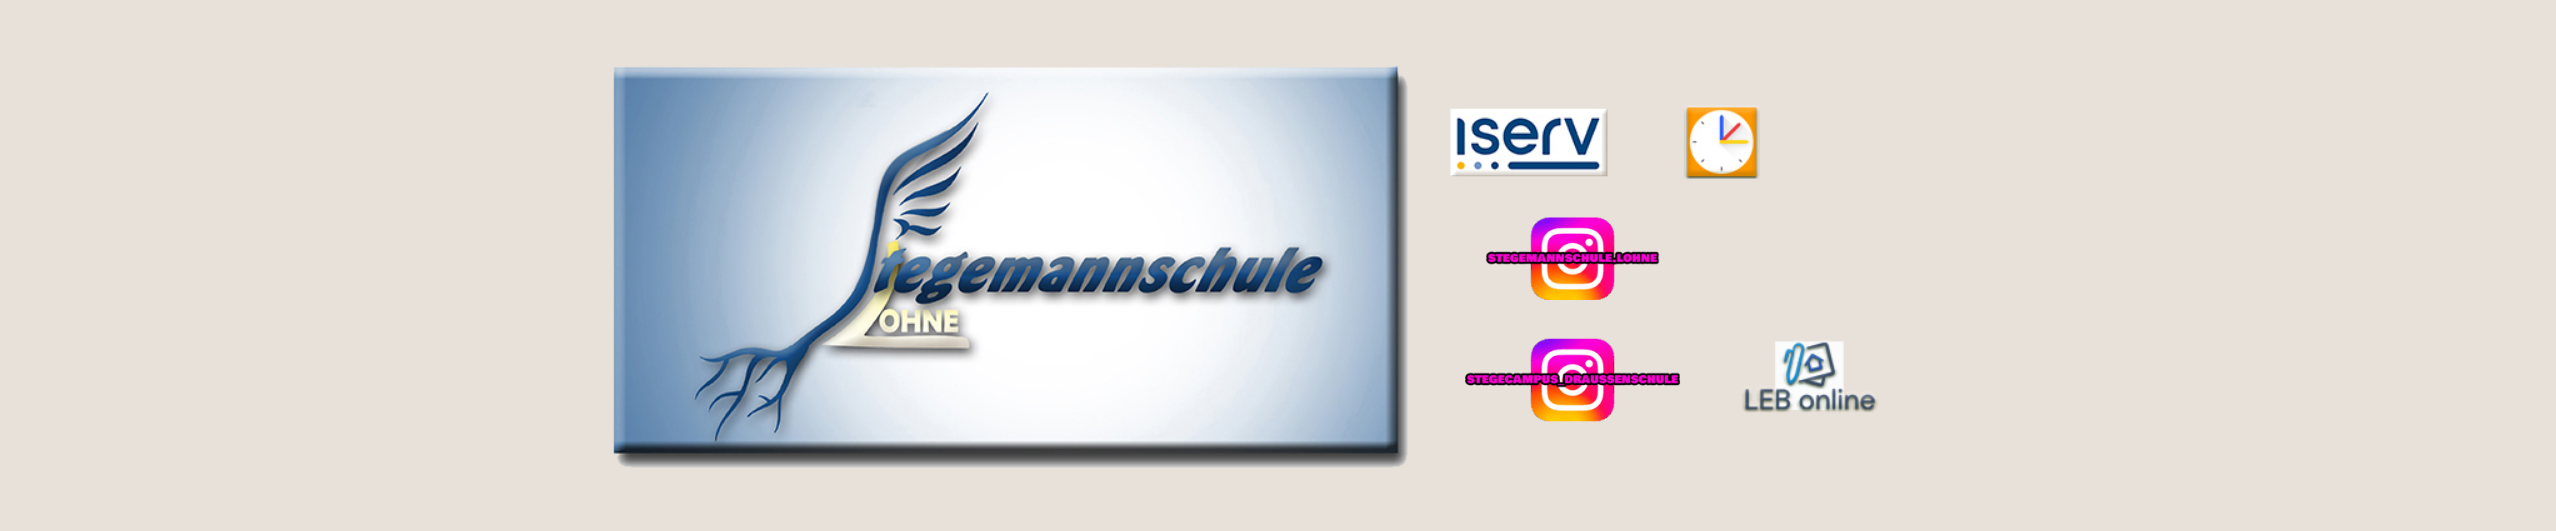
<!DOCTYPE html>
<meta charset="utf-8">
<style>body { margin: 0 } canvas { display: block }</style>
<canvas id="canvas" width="2556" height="531"></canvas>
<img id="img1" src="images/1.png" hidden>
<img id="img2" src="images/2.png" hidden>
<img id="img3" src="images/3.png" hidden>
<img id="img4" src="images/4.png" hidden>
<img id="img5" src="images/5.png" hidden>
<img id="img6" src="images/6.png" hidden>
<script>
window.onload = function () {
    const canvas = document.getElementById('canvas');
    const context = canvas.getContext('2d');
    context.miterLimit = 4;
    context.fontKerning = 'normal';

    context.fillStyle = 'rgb(232, 225, 218)';
    context.fillRect(0, 0, 2556, 531);
    context.drawImage(document.getElementById('img1'), 613, 66, 795, 402);
    context.drawImage(document.getElementById('img2'), 1450, 108, 158, 69);
    context.drawImage(document.getElementById('img3'), 1683, 105, 77, 74);
    context.drawImage(document.getElementById('img4'), 1485, 217, 175, 83);
    context.drawImage(document.getElementById('img5'), 1464, 338, 217, 84);
    context.drawImage(document.getElementById('img6'), 1741, 339, 138, 74);
};
</script>
